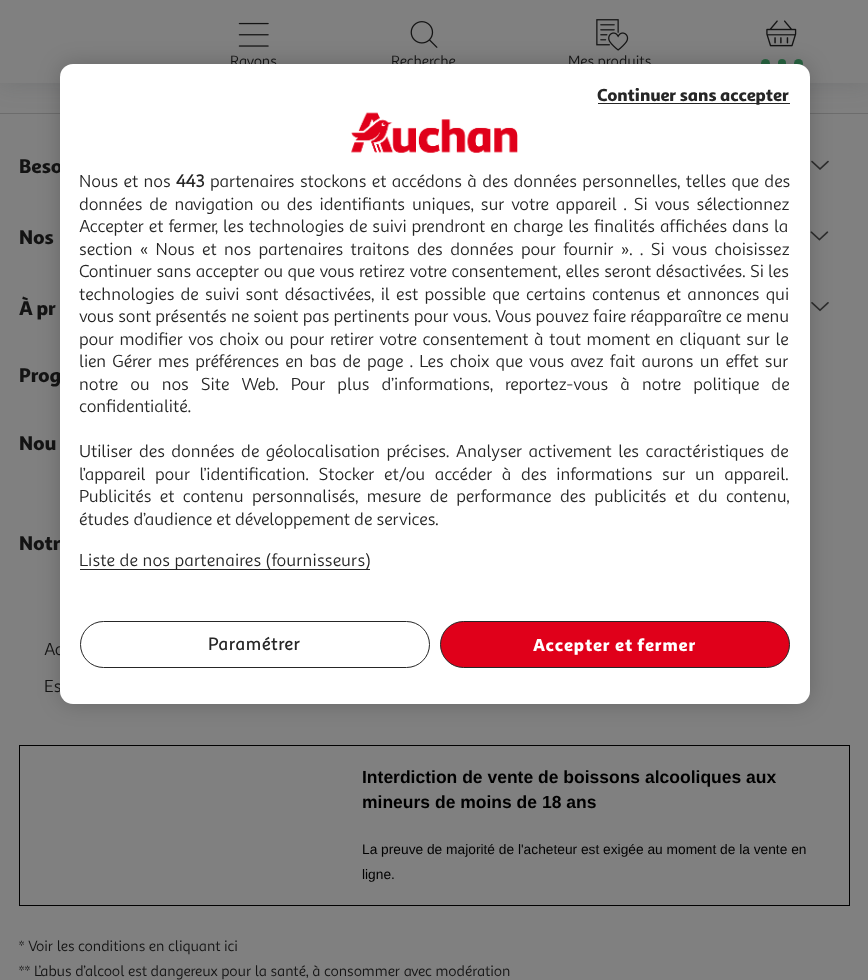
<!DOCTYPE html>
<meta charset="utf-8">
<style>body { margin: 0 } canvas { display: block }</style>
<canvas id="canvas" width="868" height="980"></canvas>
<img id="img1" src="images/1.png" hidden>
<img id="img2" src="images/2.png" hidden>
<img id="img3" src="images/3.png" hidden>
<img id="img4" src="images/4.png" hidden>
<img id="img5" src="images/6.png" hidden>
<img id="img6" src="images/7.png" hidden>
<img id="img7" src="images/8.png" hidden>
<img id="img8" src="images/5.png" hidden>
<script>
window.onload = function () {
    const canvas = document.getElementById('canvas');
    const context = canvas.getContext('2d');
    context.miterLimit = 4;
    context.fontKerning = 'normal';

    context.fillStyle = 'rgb(128, 128, 128)';
    context.fillRect(0, 0, 868, 980);
    context.fillStyle = 'rgb(108, 108, 108)';
    context.fillRect(0, 113, 868, 1);
    context.fillStyle = 'rgba(58, 65, 68, 0.2)';
    context.filter = 'blur(12.5px)';
    context.beginPath();
    context.rect(0, 0, 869, 83);
    context.fill();
    context.filter = 'none';
    context.fillStyle = 'rgb(128, 128, 128)';
    context.fillRect(0, 0, 868, 83);
    context.drawImage(document.getElementById('img1'), 238, 22, 31, 25);
    context.drawImage(document.getElementById('img2'), 410, 21, 28, 27);
    context.drawImage(document.getElementById('img3'), 596, 19, 33, 32);
    context.drawImage(document.getElementById('img4'), 766, 20, 31, 27);
    context.fillStyle = 'rgb(40, 100, 65)';
    context.beginPath();
    context.arc(765.5, 63.5, 4.5, 0, 2 * Math.PI);
    context.fill();
    context.beginPath();
    context.roundRect(778, 59, 8, 9, 4);
    context.fill();
    context.beginPath();
    context.arc(798.5, 63.5, 4.5, 0, 2 * Math.PI);
    context.fill();
    context.drawImage(document.getElementById('img5'), 811, 160, 18, 10);
    context.drawImage(document.getElementById('img6'), 810, 231, 19, 10);
    context.drawImage(document.getElementById('img7'), 811, 302, 18, 10);
    context.fillStyle = 'rgba(0, 0, 0, 0.2)';
    context.filter = 'blur(11px)';
    context.beginPath();
    context.roundRect(60, 64, 750, 640, 13);
    context.fill();
    context.filter = 'none';
    context.strokeStyle = 'rgb(0, 0, 0)';
    context.strokeRect(19.5, 745.5, 830, 160);
    context.font = '15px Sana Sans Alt';
    context.fillStyle = 'rgb(19, 19, 19)';
    context.fillText('Rayons', 230, 66);
    context.fillText('Recherche', 391, 66);
    context.fillText('Mes produits', 568, 66);
    context.font = '900 20px Sana Sans Alt';
    context.fillText('Beso', 19, 173);
    context.fillText('Nos', 19, 244);
    context.fillText('À pr', 19, 315);
    context.fillText('Prog', 19, 382);
    context.fillText('Nou', 19, 450);
    context.fillText('Notr', 19, 550);
    context.font = '17.5px Sana Sans Alt';
    context.fillText('Ac', 44, 655);
    context.fillText('Es', 44, 692);
    context.fillStyle = 'rgb(255, 255, 255)';
    context.beginPath();
    context.roundRect(60, 64, 750, 640, 13);
    context.fill();
    context.fillStyle = 'rgb(38, 38, 38)';
    context.fillRect(598, 103, 192, 1);
    context.font = '900 17.5px Sana Sans Alt';
    context.fillText('Continuer sans accepter', 597, 101);
    context.fillStyle = 'rgb(224, 0, 26)';
    context.beginPath();
    context.roundRect(440.5, 621.5, 349, 46, 23);
    context.fill();
    context.strokeStyle = 'rgb(38, 38, 38)';
    context.stroke();
    context.letterSpacing = '0.9px';
    context.fillStyle = 'rgb(255, 255, 255)';
    context.fillText('Accepter et fermer', 533, 651);
    context.beginPath();
    context.roundRect(80.5, 621.5, 349, 46, 23);
    context.stroke();
    context.font = 'bold 17.5px Sana Sans Alt';
    context.fillStyle = 'rgb(38, 38, 38)';
    context.fillText('Paramétrer', 208, 650);
    context.drawImage(document.getElementById('img8'), 351, 112, 167, 41);
    context.fillRect(80, 569, 290, 1);
    context.letterSpacing = '0.2px';
    context.font = '17.5px Sana Sans Alt';
    context.fillText('Liste de nos partenaires (fournisseurs)', 79, 566);
    context.letterSpacing = '0px';
    context.fillText('études d’audience et développement de services.', 79, 525);
    context.wordSpacing = '4.25px';
    context.fillText('Publicités et contenu personnalisés, mesure de performance des publicités et du contenu,', 79, 502);
    context.wordSpacing = '5.4px';
    context.fillText('l’appareil pour l’identification. Stocker et/ou accéder à des informations sur un appareil.', 79, 480);
    context.wordSpacing = '2.25px';
    context.fillText('Utiliser des données de géolocalisation précises. Analyser activement les caractéristiques de', 79, 457);
    context.wordSpacing = '0px';
    context.fillText('confidentialité.', 79, 412);
    context.wordSpacing = '7.9px';
    context.fillText('notre ou nos Site Web. Pour plus d’informations, reportez-vous à notre politique de', 79, 390);
    context.wordSpacing = '2px';
    context.fillText('lien Gérer mes préférences en bas de page . Les choix que vous avez fait aurons un effet sur', 79, 367);
    context.wordSpacing = '1.4px';
    context.fillText('pour modifier vos choix ou pour retirer votre consentement à tout moment en cliquant sur le', 79, 345);
    context.wordSpacing = '0px';
    context.fillText('vous sont présentés ne soient pas pertinents pour vous. Vous pouvez faire réapparaître ce menu', 79, 322);
    context.wordSpacing = '2.1px';
    context.fillText('technologies de suivi sont désactivées, il est possible que certains contenus et annonces qui', 79, 300);
    context.wordSpacing = '0px';
    context.fillText('Si les', 750, 277);
    context.wordSpacing = '0.4px';
    context.fillText('Continuer sans accepter ou que vous retirez votre consentement, elles seront désactivées.', 79, 277);
    context.wordSpacing = '3.25px';
    context.fillText('section « Nous et nos partenaires traitons des données pour fournir ». . Si vous choisissez', 79, 255);
    context.wordSpacing = '0.8px';
    context.fillText('Accepter et fermer, les technologies de suivi prendront en charge les finalités affichées dans la', 79, 232);
    context.wordSpacing = '2.75px';
    context.fillText('données de navigation ou des identifiants uniques, sur votre appareil . Si vous sélectionnez', 79, 210);
    context.wordSpacing = '1.25px';
    context.fillText('partenaires stockons et accédons à des données personnelles, telles que des', 210, 187);
    context.wordSpacing = '0px';
    context.font = 'bold 17.5px Sana Sans Alt';
    context.fillText('443', 176, 187);
    context.wordSpacing = '1.25px';
    context.font = '17.5px Sana Sans Alt';
    context.fillText('Nous et nos', 79, 187);
    context.wordSpacing = '0px';
    context.font = 'bold 17.5px Liberation Sans';
    context.fillStyle = 'rgb(0, 0, 0)';
    context.fillText('Interdiction de vente de boissons alcooliques aux', 362, 783);
    context.fillText('mineurs de moins de 18 ans', 362, 808);
    context.font = '13.75px Liberation Sans';
    context.fillText('La preuve de majorité de l\'acheteur est exigée au moment de la vente en', 362, 854);
    context.fillText('ligne.', 362, 879);
    context.font = '15px Sana Sans Alt';
    context.fillStyle = 'rgb(19, 19, 19)';
    context.fillText('* Voir les conditions en cliquant ici', 19, 951);
    context.fillText('** L’abus d’alcool est dangereux pour la santé, à consommer avec modération', 19, 976);
};
</script>
